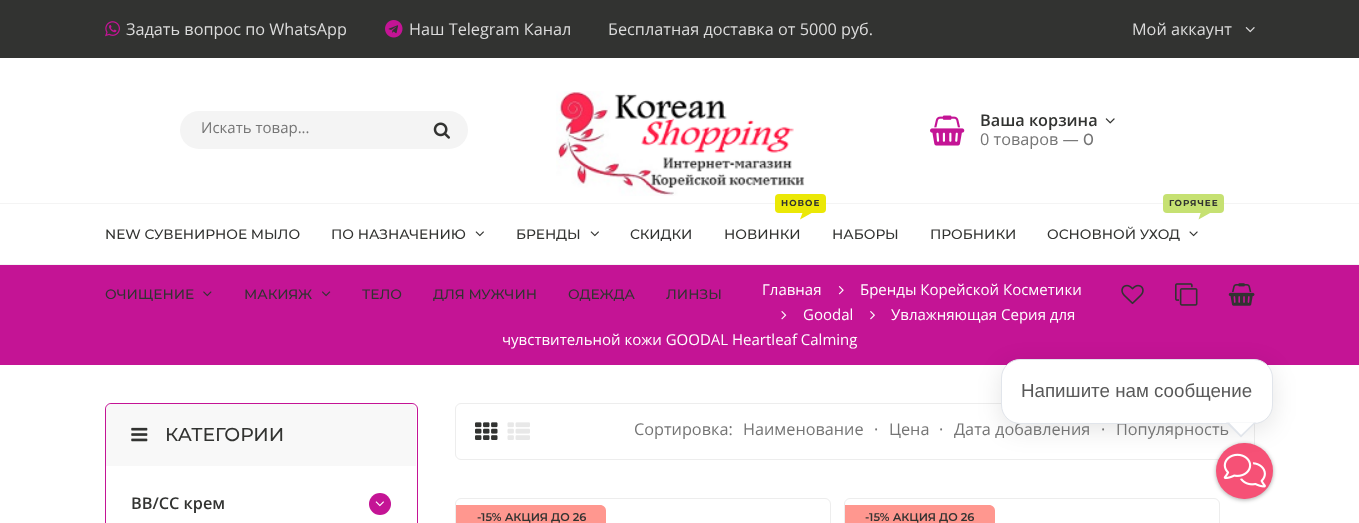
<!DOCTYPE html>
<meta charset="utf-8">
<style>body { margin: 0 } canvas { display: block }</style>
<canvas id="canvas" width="1359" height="523"></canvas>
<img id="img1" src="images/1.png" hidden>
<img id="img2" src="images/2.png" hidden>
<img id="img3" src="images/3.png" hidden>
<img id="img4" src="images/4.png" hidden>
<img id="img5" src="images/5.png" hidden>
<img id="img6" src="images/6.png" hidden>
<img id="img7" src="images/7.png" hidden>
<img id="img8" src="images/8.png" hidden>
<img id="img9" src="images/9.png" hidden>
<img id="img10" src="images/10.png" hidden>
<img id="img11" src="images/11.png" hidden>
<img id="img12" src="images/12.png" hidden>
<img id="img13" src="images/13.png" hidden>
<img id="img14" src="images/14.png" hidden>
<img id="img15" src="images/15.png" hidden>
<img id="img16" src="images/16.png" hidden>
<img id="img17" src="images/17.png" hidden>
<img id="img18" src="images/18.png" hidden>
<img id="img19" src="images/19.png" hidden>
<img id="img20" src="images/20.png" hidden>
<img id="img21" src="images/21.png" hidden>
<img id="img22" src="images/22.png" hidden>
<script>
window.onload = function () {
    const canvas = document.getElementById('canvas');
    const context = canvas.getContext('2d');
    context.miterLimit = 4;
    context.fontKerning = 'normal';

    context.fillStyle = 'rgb(255, 255, 255)';
    context.fillRect(0, 0, 1359, 523);
    context.fillStyle = 'rgb(50, 51, 49)';
    context.fillRect(0, 0, 1359, 58);
    context.drawImage(document.getElementById('img1'), 105, 21, 15, 16);
    context.drawImage(document.getElementById('img2'), 385, 20, 18, 18);
    context.drawImage(document.getElementById('img3'), 1245, 27, 10, 6);
    context.fillStyle = 'rgb(244, 244, 244)';
    context.beginPath();
    context.roundRect(180, 111, 288, 38, 19);
    context.fill();
    context.drawImage(document.getElementById('img4'), 433, 122, 17, 17);
    context.drawImage(document.getElementById('img5'), 556, 91, 249, 105);
    context.drawImage(document.getElementById('img6'), 930, 115, 35, 31);
    context.drawImage(document.getElementById('img7'), 1105, 118, 10, 6);
    context.fillRect(0, 203, 1359, 1);
    context.fillRect(0, 264, 1359, 1);
    context.drawImage(document.getElementById('img8'), 475, 231, 9, 6);
    context.drawImage(document.getElementById('img8'), 590, 231, 9, 6);
    context.fillStyle = 'rgb(235, 232, 6)';
    context.beginPath();
    context.moveTo(821, 198);
    context.lineTo(817, 210);
    context.lineTo(800, 219.5);
    context.lineTo(804.5, 207.5);
    context.closePath();
    context.fill();
    context.beginPath();
    context.roundRect(775, 194, 51, 19, 4);
    context.fill();
    context.fillStyle = 'rgb(198, 225, 114)';
    context.beginPath();
    context.moveTo(1219.5, 198);
    context.lineTo(1215.5, 210);
    context.lineTo(1198.5, 219.5);
    context.lineTo(1202.5, 207.5);
    context.closePath();
    context.fill();
    context.beginPath();
    context.roundRect(1163, 194, 61, 19, 4);
    context.fill();
    context.drawImage(document.getElementById('img9'), 1189, 231, 9, 6);
    context.fillStyle = 'rgb(196, 20, 149)';
    context.fillRect(0, 265, 1359, 100);
    context.drawImage(document.getElementById('img10'), 203, 291, 9, 6);
    context.drawImage(document.getElementById('img11'), 322, 291, 9, 6);
    context.drawImage(document.getElementById('img12'), 1121, 284, 23, 21);
    context.drawImage(document.getElementById('img13'), 1175, 283, 23, 23);
    context.drawImage(document.getElementById('img14'), 1228, 283, 27, 23);
    context.drawImage(document.getElementById('img15'), 838, 286, 6, 9);
    context.drawImage(document.getElementById('img16'), 781, 311, 6, 9);
    context.drawImage(document.getElementById('img17'), 870, 311, 5, 9);
    context.beginPath();
    context.roundRect(105.5, 403.5, 312, 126, 5.5);
    context.strokeStyle = 'rgb(196, 20, 149)';
    context.stroke();
    context.save();
    context.beginPath();
    context.roundRect(106, 404, 310, 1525, 5);
    context.clip();
    context.fillStyle = 'rgb(248, 248, 248)';
    context.beginPath();
    context.roundRect(106, 404, 310, 62, [6, 6, 0, 0]);
    context.fill();
    context.restore();
    context.drawImage(document.getElementById('img18'), 131, 427, 17, 15);
    context.beginPath();
    context.arc(380, 504, 11, 0, 2 * Math.PI);
    context.fill();
    context.drawImage(document.getElementById('img19'), 375, 501, 9, 6);
    context.beginPath();
    context.roundRect(455.5, 403.5, 799, 56, 5.5);
    context.strokeStyle = 'rgb(237, 237, 237)';
    context.stroke();
    context.drawImage(document.getElementById('img20'), 475, 422, 23, 18);
    context.drawImage(document.getElementById('img21'), 507, 422, 23, 18);
    context.beginPath();
    context.roundRect(455.5, 498.5, 375, 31, 5.5);
    context.stroke();
    context.fillStyle = 'rgb(255, 151, 143)';
    context.beginPath();
    context.moveTo(456, 505);
    context.lineTo(600, 505);
    context.bezierCurveTo(603.5, 505, 606, 507.5, 606, 511);
    context.lineTo(606, 523);
    context.bezierCurveTo(606, 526.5, 603.5, 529, 600, 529);
    context.lineTo(456, 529);
    context.closePath();
    context.fill();
    context.beginPath();
    context.roundRect(844.5, 498.5, 375, 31, 5.5);
    context.stroke();
    context.beginPath();
    context.moveTo(845, 505);
    context.lineTo(989, 505);
    context.bezierCurveTo(992.5, 505, 995, 507.5, 995, 511);
    context.lineTo(995, 523);
    context.bezierCurveTo(995, 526.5, 992.5, 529, 989, 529);
    context.lineTo(845, 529);
    context.closePath();
    context.fill();
    context.fillStyle = 'rgba(0, 0, 0, 0.33)';
    context.filter = 'blur(2px)';
    context.beginPath();
    context.roundRect(1216, 444, 57, 56, 28);
    context.fill();
    context.filter = 'none';
    context.fillStyle = 'rgb(246, 81, 118)';
    context.beginPath();
    context.roundRect(1216, 443, 57, 56, 28);
    context.fill();
    context.drawImage(document.getElementById('img22'), 1223, 453, 43, 35);
    context.fillStyle = 'rgba(0, 0, 0, 0.1)';
    context.filter = 'blur(12.5px)';
    context.beginPath();
    context.roundRect(1001, 365, 272, 65, 19);
    context.fill();
    context.filter = 'none';
    context.font = '16.25px Open Sans';
    context.fillStyle = 'rgb(220, 220, 220)';
    context.fillText('Задать вопрос по WhatsApp', 126, 35);
    context.fillText('Наш Telegram Канал', 409, 35);
    context.fillText('Бесплатная доставка от 5000 руб.', 608, 35);
    context.fillText('Мой аккаунт', 1132, 35);
    context.font = '15px Open Sans';
    context.fillStyle = 'rgb(117, 117, 117)';
    context.fillText('Искать товар...', 201, 133);
    context.font = '600 16.25px Open Sans';
    context.fillStyle = 'rgb(50, 51, 49)';
    context.fillText('Ваша корзина', 980, 126);
    context.font = '16.25px Open Sans';
    context.fillStyle = 'rgb(117, 117, 117)';
    context.fillText('0 товаров —', 980, 145);
    context.font = '500 16.25px Montserrat';
    context.fillText('0', 1083, 145);
    context.font = '500 13.75px Montserrat';
    context.fillStyle = 'rgb(50, 51, 49)';
    context.fillText('NEW СУВЕНИРНОЕ МЫЛО', 105, 239);
    context.fillText('ПО НАЗНАЧЕНИЮ', 331, 239);
    context.fillText('БРЕНДЫ', 516, 239);
    context.fillText('СКИДКИ', 630, 239);
    context.letterSpacing = '1px';
    context.font = 'bold 8.75px Montserrat';
    context.fillText('НОВОЕ', 781, 206);
    context.letterSpacing = '0px';
    context.font = '500 13.75px Montserrat';
    context.fillText('НОВИНКИ', 724, 239);
    context.fillText('НАБОРЫ', 832, 239);
    context.fillText('ПРОБНИКИ', 930, 239);
    context.letterSpacing = '1px';
    context.font = 'bold 8.75px Montserrat';
    context.fillText('ГОРЯЧЕЕ', 1169, 206);
    context.letterSpacing = '0px';
    context.font = '500 13.75px Montserrat';
    context.fillText('ОСНОВНОЙ УХОД', 1047, 239);
    context.fillText('ОЧИЩЕНИЕ', 105, 299);
    context.fillText('МАКИЯЖ', 244, 299);
    context.fillText('ТЕЛО', 362, 299);
    context.fillText('ДЛЯ МУЖЧИН', 433, 299);
    context.fillText('ОДЕЖДА', 568, 299);
    context.fillText('ЛИНЗЫ', 666, 299);
    context.font = '15px Open Sans';
    context.fillStyle = 'rgb(255, 255, 255)';
    context.fillText('Главная', 762, 295);
    context.fillText('Бренды Корейской Косметики', 860, 295);
    context.fillText('Goodal', 803, 320);
    context.fillText('Увлажняющая Серия для', 891, 320);
    context.fillText('чувствительной кожи GOODAL Heartleaf Calming', 502, 345);
    context.font = '500 18.75px Montserrat';
    context.fillStyle = 'rgb(50, 51, 49)';
    context.fillText('КАТЕГОРИИ', 165, 441);
    context.font = '600 16.25px Open Sans';
    context.fillText('ВВ/CC крем', 131, 509);
    context.font = '16.25px Open Sans';
    context.fillStyle = 'rgb(117, 117, 117)';
    context.fillText('Сортировка:', 634, 435);
    context.fillText('Наименование', 743, 435);
    context.fillText('·', 874, 435);
    context.fillText('Цена', 889, 435);
    context.fillText('·', 939, 435);
    context.fillText('Дата добавления', 954, 435);
    context.fillText('·', 1101, 435);
    context.fillText('Популярность', 1116, 435);
    context.font = '600 11.25px Montserrat';
    context.fillStyle = 'rgb(50, 51, 49)';
    context.fillText('-15% АКЦИЯ ДО 26', 477, 521);
    context.fillText('-15% АКЦИЯ ДО 26', 865, 521);
    context.fillStyle = 'rgb(255, 255, 255)';
    context.beginPath();
    context.roundRect(1001.5, 359.5, 271, 64, 18.5);
    context.fill();
    context.strokeStyle = 'rgb(225, 229, 235)';
    context.stroke();
    context.font = '18.75px Liberation Sans';
    context.fillStyle = 'rgb(89, 89, 89)';
    context.fillText('Напишите нам сообщение', 1021, 397);
    context.fillStyle = 'rgb(225, 229, 235)';
    context.beginPath();
    context.moveTo(1226, 422.5);
    context.lineTo(1256, 422.5);
    context.lineTo(1241, 437.5);
    context.closePath();
    context.fill();
    context.fillStyle = 'rgb(255, 255, 255)';
    context.beginPath();
    context.moveTo(1229, 422.5);
    context.lineTo(1254, 422.5);
    context.lineTo(1241, 435);
    context.closePath();
    context.fill();
};
</script>
